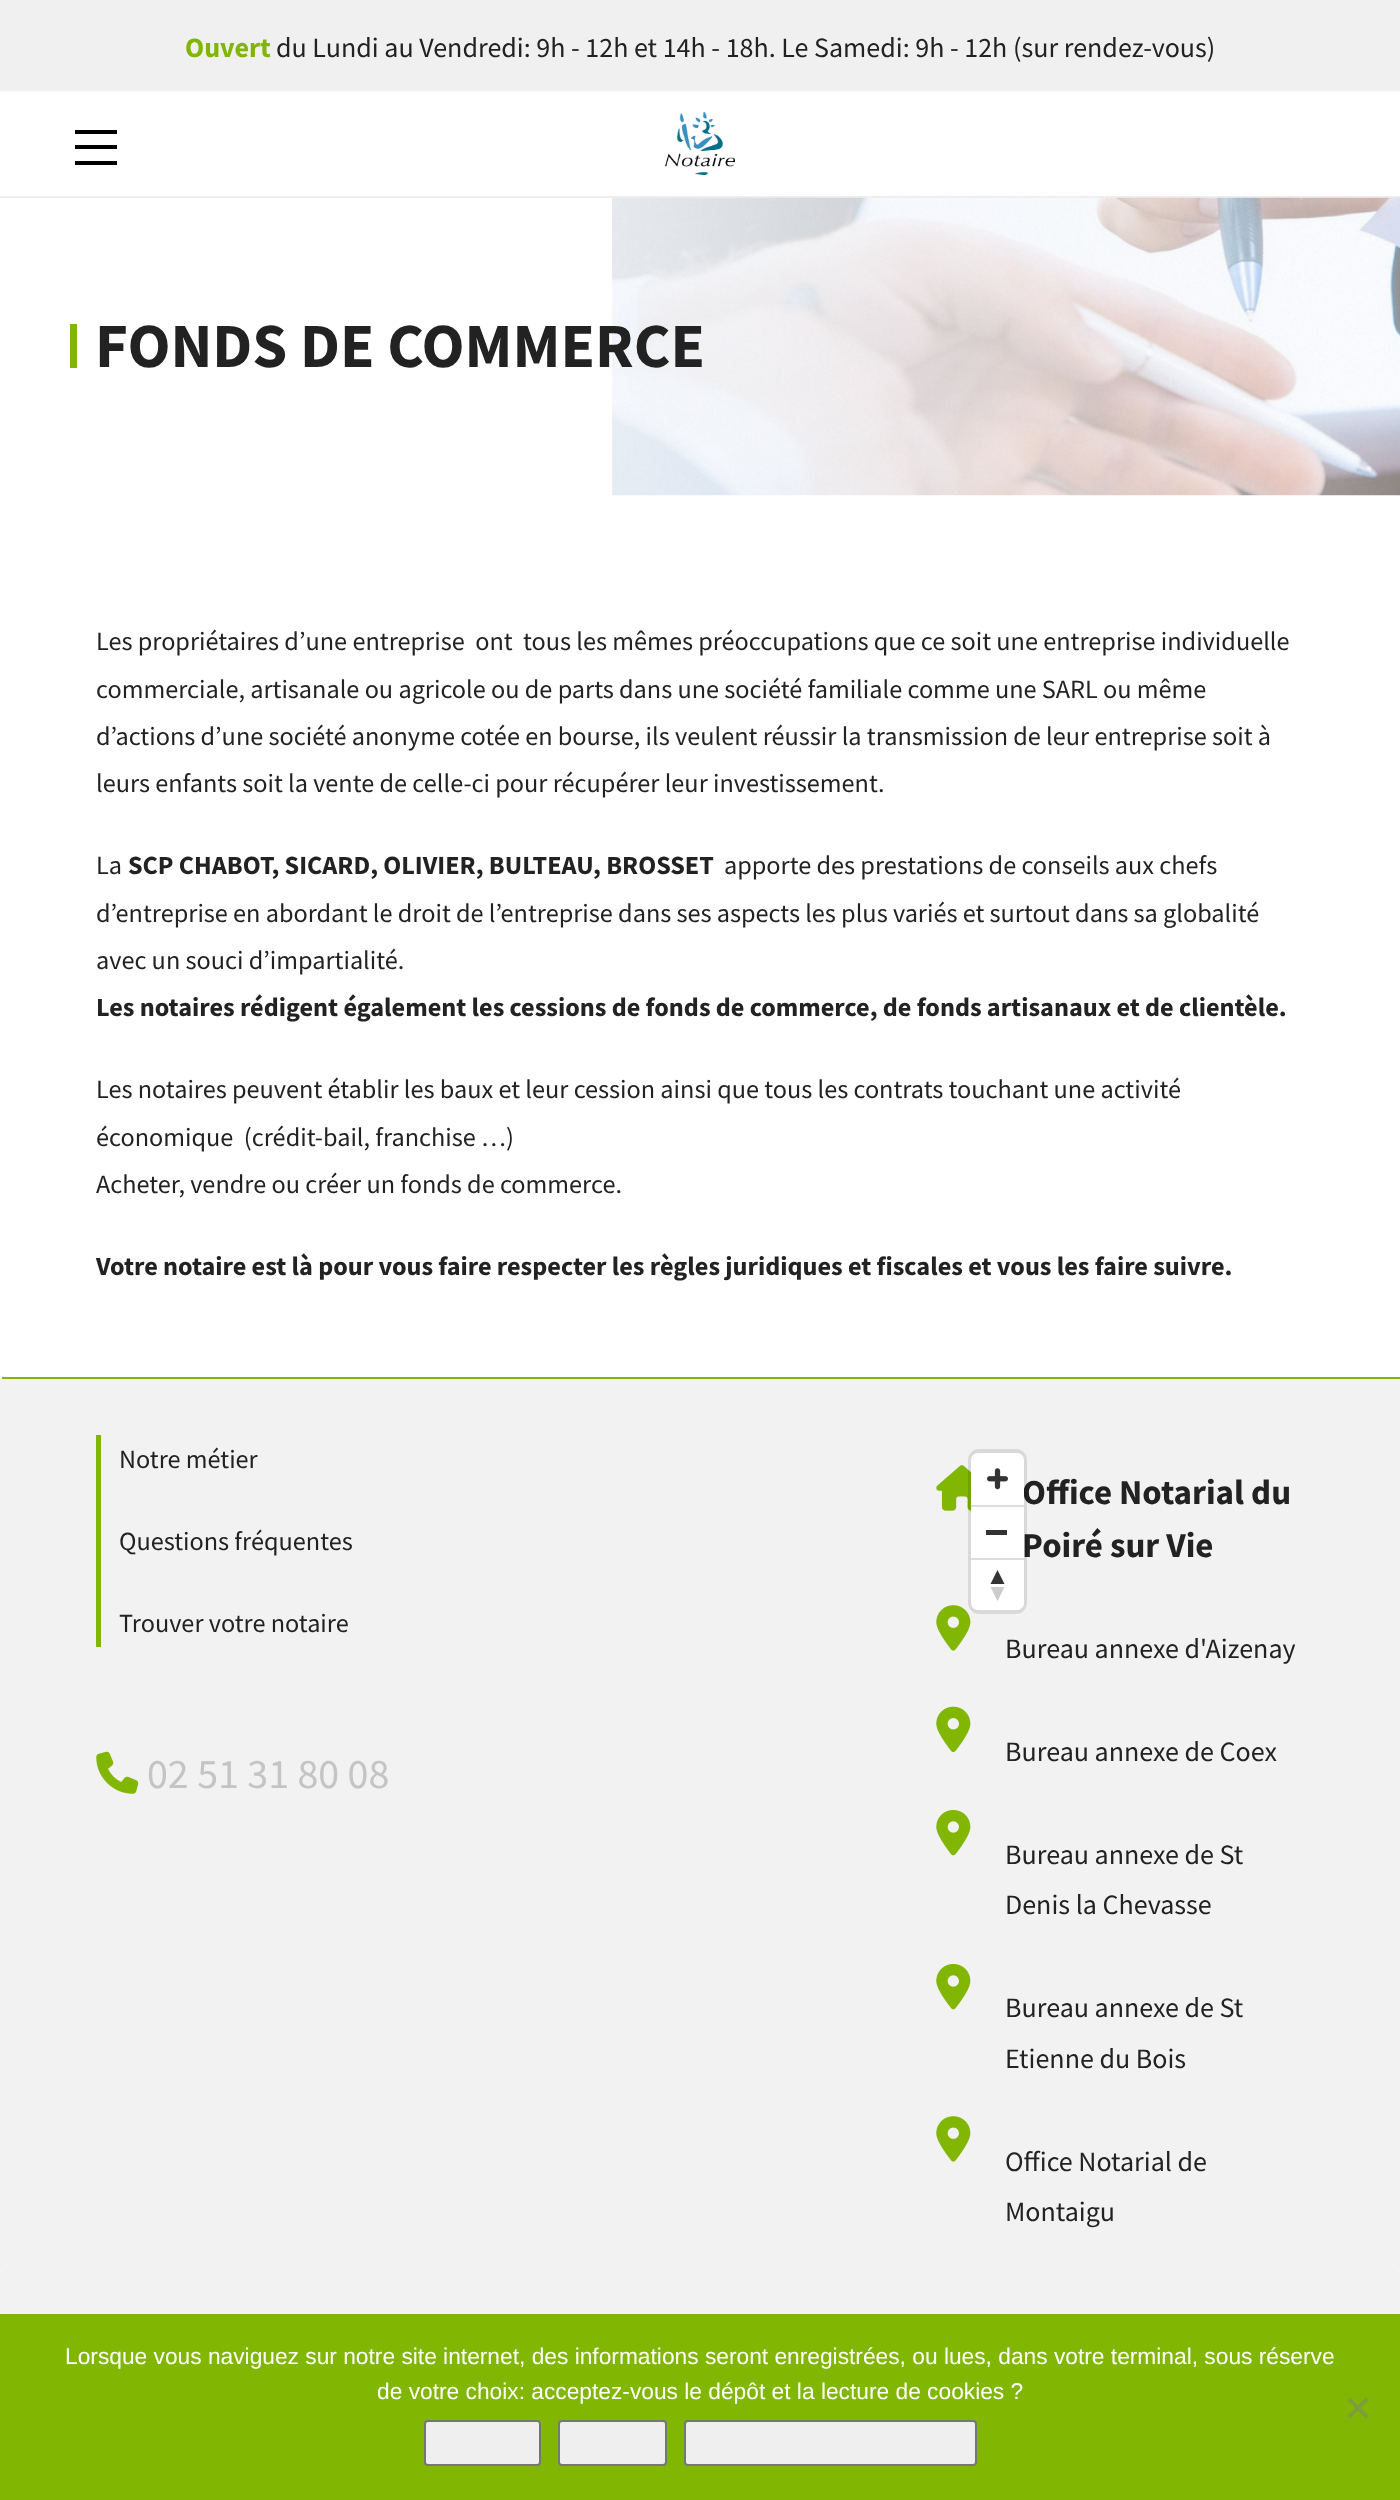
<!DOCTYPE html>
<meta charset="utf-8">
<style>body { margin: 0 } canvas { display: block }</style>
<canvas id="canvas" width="1400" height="2500"></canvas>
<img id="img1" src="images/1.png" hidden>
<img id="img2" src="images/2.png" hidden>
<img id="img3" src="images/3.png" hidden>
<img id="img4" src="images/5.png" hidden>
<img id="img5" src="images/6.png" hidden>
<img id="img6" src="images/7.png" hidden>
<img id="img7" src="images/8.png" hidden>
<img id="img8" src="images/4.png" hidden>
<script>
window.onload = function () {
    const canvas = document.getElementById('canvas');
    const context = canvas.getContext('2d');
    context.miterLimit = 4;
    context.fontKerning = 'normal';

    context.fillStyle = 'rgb(255, 255, 255)';
    context.fillRect(0, 0, 1400, 2500);
    context.fillStyle = 'rgb(240, 240, 240)';
    context.fillRect(0, 0, 1400, 91);
    context.fillStyle = 'rgb(238, 238, 238)';
    context.fillRect(0, 196, 1400, 2);
    context.fillStyle = 'rgb(0, 0, 0)';
    context.fillRect(75, 130, 42, 4);
    context.fillRect(75, 145, 42, 4);
    context.fillRect(75, 161, 42, 4);
    context.drawImage(document.getElementById('img1'), 665, 112, 70, 63);
    context.drawImage(document.getElementById('img2'), 612, 197, 788, 299);
    context.fillStyle = 'rgb(129, 182, 0)';
    context.fillRect(70, 324, 7, 44);
    context.fillStyle = 'rgb(242, 242, 242)';
    context.beginPath();
    context.roundRect(0, 1377, 1400, 895, 2);
    context.fill();
    context.fillStyle = 'rgb(129, 182, 2)';
    context.fillRect(2, 1377, 1398, 2);
    context.fillRect(96, 1435, 5, 212);
    context.drawImage(document.getElementById('img3'), 96, 1751, 43, 43);
    context.drawImage(document.getElementById('img4'), 936, 1465, 35, 46);
    context.drawImage(document.getElementById('img5'), 936, 1605, 35, 46);
    context.drawImage(document.getElementById('img6'), 936, 1706, 35, 47);
    context.drawImage(document.getElementById('img7'), 936, 1809, 35, 47);
    context.drawImage(document.getElementById('img7'), 936, 1963, 35, 47);
    context.drawImage(document.getElementById('img5'), 936, 2116, 35, 46);
    context.fillStyle = 'rgb(242, 242, 242)';
    context.fillRect(0, 2272, 1400, 42);
    context.fillStyle = 'rgb(129, 182, 2)';
    context.fillRect(0, 2314, 1400, 186);
    context.fillStyle = 'rgb(129, 155, 65)';
    context.beginPath();
    context.moveTo(1366, 2397.5);
    context.lineTo(1368.5, 2400);
    context.lineTo(1350, 2418.5);
    context.lineTo(1347.5, 2416);
    context.closePath();
    context.fill();
    context.beginPath();
    context.moveTo(1347.5, 2400);
    context.lineTo(1350, 2397.5);
    context.lineTo(1368.5, 2416);
    context.lineTo(1366, 2418.5);
    context.closePath();
    context.fill();
    context.fillStyle = 'rgb(239, 239, 239)';
    context.beginPath();
    context.roundRect(425, 2421, 115, 44, 3);
    context.fill();
    context.strokeStyle = 'rgb(118, 118, 118)';
    context.lineWidth = 2;
    context.stroke();
    context.beginPath();
    context.roundRect(559, 2421, 107, 44, 3);
    context.fill();
    context.stroke();
    context.beginPath();
    context.roundRect(685, 2421, 291, 44, 3);
    context.fill();
    context.stroke();
    context.font = 'bold 28px Source Sans Pro';
    context.fillStyle = 'rgb(129, 182, 0)';
    context.fillText('Ouvert', 185, 57);
    context.font = '28px Source Sans Pro';
    context.fillStyle = 'rgb(34, 34, 34)';
    context.fillText('du Lundi au Vendredi: 9h - 12h et 14h - 18h. Le Samedi: 9h - 12h (sur rendez-vous)', 276, 57);
    context.font = 'bold 63px Source Sans Pro';
    context.fillText('FONDS DE COMMERCE', 95, 367);
    context.font = '26.25px Source Sans Pro';
    context.fillText('Les propriétaires d’une entreprise  ont  tous les mêmes préoccupations que ce soit une entreprise individuelle', 96, 650);
    context.fillText('commerciale, artisanale ou agricole ou de parts dans une société familiale comme une SARL ou même', 96, 698);
    context.fillText('d’actions d’une société anonyme cotée en bourse, ils veulent réussir la transmission de leur entreprise soit à', 96, 745);
    context.fillText('leurs enfants soit la vente de celle-ci pour récupérer leur investissement.', 96, 792);
    context.fillText('La', 96, 874);
    context.font = 'bold 26.25px Source Sans Pro';
    context.fillText('SCP CHABOT, SICARD, OLIVIER, BULTEAU, BROSSET', 128, 874);
    context.font = '26.25px Source Sans Pro';
    context.fillText('apporte des prestations de conseils aux chefs', 724, 874);
    context.fillText('d’entreprise en abordant le droit de l’entreprise dans ses aspects les plus variés et surtout dans sa globalité', 96, 922);
    context.fillText('avec un souci d’impartialité.', 96, 969);
    context.font = 'bold 26.25px Source Sans Pro';
    context.fillText('Les notaires rédigent également les cessions de fonds de commerce, de fonds artisanaux et de clientèle.', 96, 1016);
    context.font = '26.25px Source Sans Pro';
    context.fillText('Les notaires peuvent établir les baux et leur cession ainsi que tous les contrats touchant une activité', 96, 1098);
    context.fillText('économique  (crédit-bail, franchise …)', 96, 1146);
    context.fillText('Acheter, vendre ou créer un fonds de commerce.', 96, 1193);
    context.font = 'bold 26.25px Source Sans Pro';
    context.fillText('Votre notaire est là pour vous faire respecter les règles juridiques et fiscales et vous les faire suivre.', 96, 1275);
    context.font = '26.25px Source Sans Pro';
    context.fillText('Notre métier', 119, 1468);
    context.fillText('Questions fréquentes', 119, 1550);
    context.fillText('Trouver votre notaire', 119, 1632);
    context.font = '42px Source Sans Pro';
    context.fillStyle = 'rgb(196, 196, 196)';
    context.fillText('02 51 31 80 08', 147, 1788);
    context.font = 'bold 35px Source Sans Pro';
    context.fillStyle = 'rgb(34, 34, 34)';
    context.fillText('Office Notarial du', 1022, 1504);
    context.fillText('Poiré sur Vie', 1022, 1557);
    context.beginPath();
    context.roundRect(970, 1451, 55, 161, 9);
    context.strokeStyle = 'rgba(0, 0, 0, 0.1)';
    context.lineWidth = 4;
    context.stroke();
    context.fillStyle = 'rgb(255, 255, 255)';
    context.beginPath();
    context.roundRect(971, 1453, 53, 157, 7);
    context.fill();
    context.fillStyle = 'rgb(204, 204, 204)';
    context.beginPath();
    context.moveTo(990.5, 1587);
    context.lineTo(997.5, 1601);
    context.lineTo(1004.5, 1587);
    context.closePath();
    context.fill();
    context.fillStyle = 'rgb(51, 51, 51)';
    context.beginPath();
    context.moveTo(990.5, 1584);
    context.lineTo(997.5, 1570);
    context.lineTo(1004.5, 1584);
    context.closePath();
    context.fill();
    context.fillStyle = 'rgb(221, 221, 221)';
    context.fillRect(971, 1558, 53, 2);
    context.fillRect(971, 1505, 53, 2);
    context.fillStyle = 'rgb(51, 51, 51)';
    context.fillRect(986, 1530, 21, 5);
    context.drawImage(document.getElementById('img8'), 987, 1468, 21, 22);
    context.font = '28px Source Sans Pro';
    context.fillStyle = 'rgb(34, 34, 34)';
    context.fillText('Bureau annexe d\'Aizenay', 1005, 1658);
    context.fillText('Bureau annexe de Coex', 1005, 1761);
    context.fillText('Bureau annexe de St', 1005, 1864);
    context.fillText('Denis la Chevasse', 1005, 1914);
    context.fillText('Bureau annexe de St', 1005, 2017);
    context.fillText('Etienne du Bois', 1005, 2068);
    context.fillText('Office Notarial de', 1005, 2171);
    context.fillText('Montaigu', 1005, 2221);
    context.font = '22.75px Liberation Sans';
    context.fillStyle = 'rgb(255, 255, 255)';
    context.fillText('Lorsque vous naviguez sur notre site internet, des informations seront enregistrées, ou lues, dans votre terminal, sous réserve', 65, 2364);
    context.fillText('de votre choix: acceptez-vous le dépôt et la lecture de cookies ?', 377, 2399);
};
</script>
